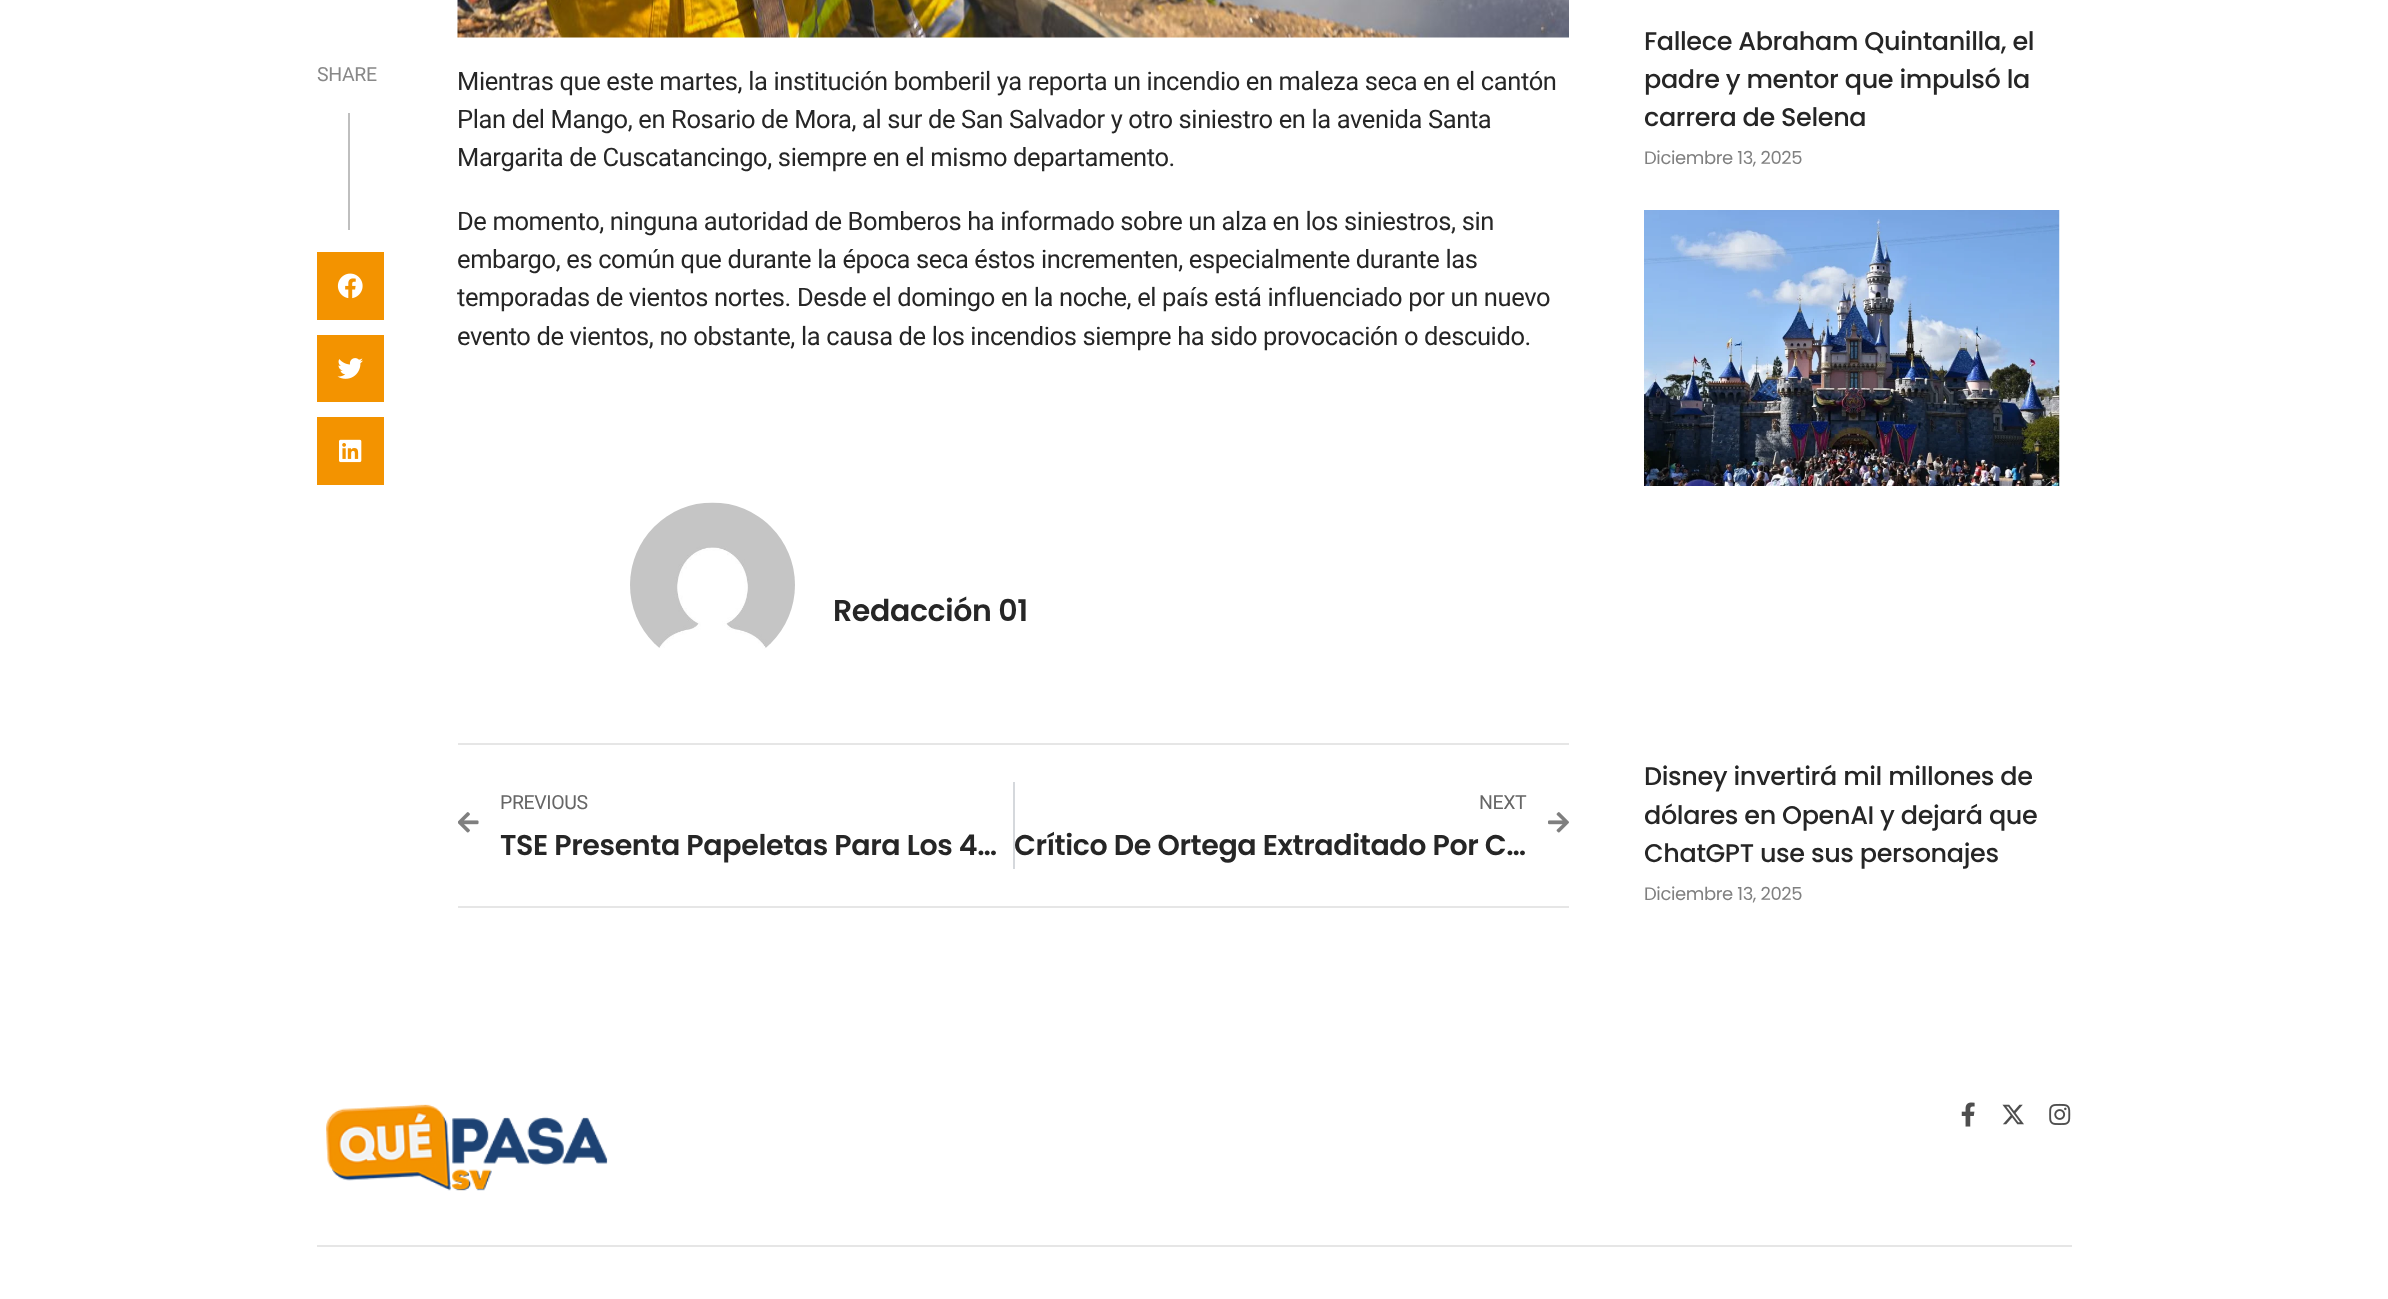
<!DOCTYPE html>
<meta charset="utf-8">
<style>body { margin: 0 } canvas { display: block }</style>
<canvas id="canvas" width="2388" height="1299"></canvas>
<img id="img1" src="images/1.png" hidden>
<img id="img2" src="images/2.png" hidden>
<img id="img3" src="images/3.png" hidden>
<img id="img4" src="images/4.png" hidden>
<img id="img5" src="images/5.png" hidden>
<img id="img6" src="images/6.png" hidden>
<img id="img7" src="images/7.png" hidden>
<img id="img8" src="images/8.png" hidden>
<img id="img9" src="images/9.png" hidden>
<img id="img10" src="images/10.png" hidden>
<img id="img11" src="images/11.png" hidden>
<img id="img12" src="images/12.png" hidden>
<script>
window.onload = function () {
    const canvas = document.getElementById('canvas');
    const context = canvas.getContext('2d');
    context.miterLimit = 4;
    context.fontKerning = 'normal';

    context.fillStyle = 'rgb(255, 255, 255)';
    context.fillRect(0, 0, 2388, 1299);
    context.fillStyle = 'rgb(191, 191, 191)';
    context.fillRect(348, 113, 2, 117);
    context.fillStyle = 'rgb(243, 147, 0)';
    context.fillRect(317, 252, 67, 68);
    context.drawImage(document.getElementById('img1'), 337, 273, 26, 26);
    context.fillRect(317, 335, 67, 67);
    context.drawImage(document.getElementById('img2'), 337, 358, 26, 21);
    context.fillRect(317, 417, 67, 68);
    context.drawImage(document.getElementById('img3'), 339, 439, 23, 24);
    context.drawImage(document.getElementById('img4'), 457, 0, 1112, 38);
    context.drawImage(document.getElementById('img5'), 630, 502, 165, 147);
    context.fillStyle = 'rgb(230, 230, 230)';
    context.fillRect(458, 743, 1111, 2);
    context.fillRect(458, 906, 1111, 2);
    context.drawImage(document.getElementById('img6'), 458, 812, 21, 21);
    context.fillStyle = 'rgb(213, 216, 220)';
    context.fillRect(1013, 782, 2, 87);
    context.drawImage(document.getElementById('img7'), 1548, 812, 21, 21);
    context.drawImage(document.getElementById('img8'), 1644, 210, 416, 276);
    context.fillStyle = 'rgb(230, 230, 230)';
    context.fillRect(317, 1245, 1755, 2);
    context.drawImage(document.getElementById('img9'), 326, 1104, 282, 87);
    context.drawImage(document.getElementById('img10'), 1961, 1102, 14, 25);
    context.drawImage(document.getElementById('img11'), 2002, 1104, 22, 21);
    context.drawImage(document.getElementById('img12'), 2049, 1103, 22, 22);
    context.letterSpacing = '-0.38px';
    context.font = '19.5px Roboto';
    context.fillStyle = 'rgb(136, 136, 136)';
    context.fillText('SHARE', 317, 81);
    context.font = '25.5px Roboto';
    context.fillStyle = 'rgb(38, 38, 38)';
    context.fillText('Mientras que este martes, la institución bomberil ya reporta un incendio en maleza seca en el cantón', 457, 90);
    context.fillText('Plan del Mango, en Rosario de Mora, al sur de San Salvador y otro siniestro en la avenida Santa', 457, 128);
    context.fillText('Margarita de Cuscatancingo, siempre en el mismo departamento.', 457, 166);
    context.fillText('De momento, ninguna autoridad de Bomberos ha informado sobre un alza en los siniestros, sin', 457, 230);
    context.fillText('embargo, es común que durante la época seca éstos incrementen, especialmente durante las', 457, 268);
    context.fillText('temporadas de vientos nortes. Desde el domingo en la noche, el país está influenciado por un nuevo', 457, 306);
    context.fillText('evento de vientos, no obstante, la causa de los incendios siempre ha sido provocación o descuido.', 457, 345);
    context.font = '600 30px Poppins';
    context.fillText('Redacción 01', 833, 621);
    context.font = '19.5px Roboto';
    context.fillStyle = 'rgb(102, 102, 102)';
    context.fillText('PREVIOUS', 500, 809);
    context.font = '600 28.5px Poppins';
    context.fillStyle = 'rgb(38, 38, 38)';
    context.fillText('TSE Presenta Papeletas Para Los 4…', 500, 855);
    context.font = '19.5px Roboto';
    context.fillStyle = 'rgb(102, 102, 102)';
    context.fillText('NEXT', 1479, 809);
    context.font = '600 28.5px Poppins';
    context.fillStyle = 'rgb(38, 38, 38)';
    context.fillText('Crítico De Ortega Extraditado Por C…', 1014, 855);
    context.font = '500 25.5px Poppins';
    context.fillText('Fallece Abraham Quintanilla, el', 1644, 50);
    context.fillText('padre y mentor que impulsó la', 1644, 88);
    context.fillText('carrera de Selena', 1644, 126);
    context.font = '18px Poppins';
    context.fillStyle = 'rgb(128, 128, 128)';
    context.fillText('Diciembre 13, 2025', 1644, 164);
    context.font = '500 25.5px Poppins';
    context.fillStyle = 'rgb(38, 38, 38)';
    context.fillText('Disney invertirá mil millones de', 1644, 785);
    context.fillText('dólares en OpenAI y dejará que', 1644, 824);
    context.fillText('ChatGPT use sus personajes', 1644, 862);
    context.font = '18px Poppins';
    context.fillStyle = 'rgb(128, 128, 128)';
    context.fillText('Diciembre 13, 2025', 1644, 900);
};
</script>
